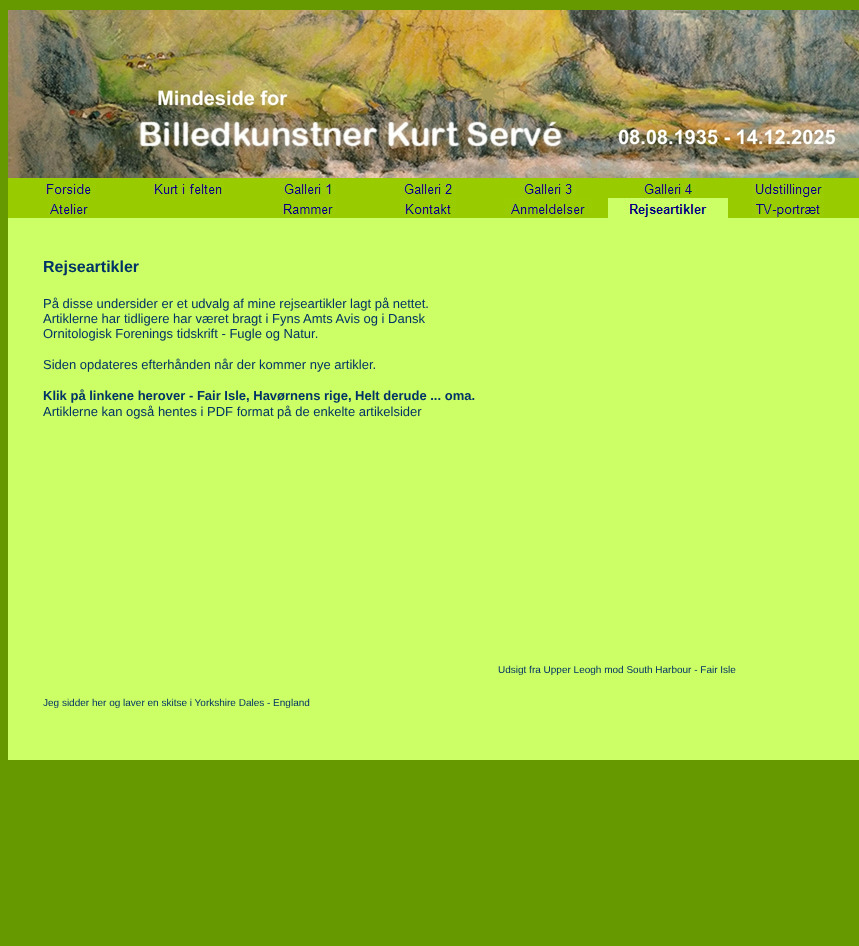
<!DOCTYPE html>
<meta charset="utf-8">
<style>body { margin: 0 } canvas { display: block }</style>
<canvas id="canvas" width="859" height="946"></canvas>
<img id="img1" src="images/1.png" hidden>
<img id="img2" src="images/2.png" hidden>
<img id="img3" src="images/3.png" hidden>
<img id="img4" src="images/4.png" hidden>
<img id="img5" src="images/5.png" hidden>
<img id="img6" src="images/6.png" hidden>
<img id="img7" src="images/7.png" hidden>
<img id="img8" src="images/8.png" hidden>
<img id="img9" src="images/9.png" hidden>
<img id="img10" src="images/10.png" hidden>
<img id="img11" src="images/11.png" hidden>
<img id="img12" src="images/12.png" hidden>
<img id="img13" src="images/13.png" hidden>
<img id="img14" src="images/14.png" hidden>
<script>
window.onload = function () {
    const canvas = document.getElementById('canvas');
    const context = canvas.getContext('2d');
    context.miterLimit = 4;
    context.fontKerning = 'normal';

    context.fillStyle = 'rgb(102, 153, 0)';
    context.fillRect(0, 0, 859, 946);
    context.fillStyle = 'rgb(204, 255, 102)';
    context.fillRect(8, 218, 851, 542);
    context.drawImage(document.getElementById('img1'), 8, 10, 851, 168);
    context.fillStyle = 'rgb(153, 204, 0)';
    context.fillRect(8, 178, 851, 40);
    context.drawImage(document.getElementById('img2'), 40, 178, 56, 16);
    context.drawImage(document.getElementById('img3'), 152, 178, 72, 16);
    context.drawImage(document.getElementById('img4'), 280, 178, 56, 16);
    context.drawImage(document.getElementById('img5'), 400, 178, 56, 16);
    context.drawImage(document.getElementById('img6'), 520, 178, 56, 16);
    context.drawImage(document.getElementById('img7'), 640, 178, 56, 16);
    context.drawImage(document.getElementById('img8'), 752, 178, 72, 20);
    context.drawImage(document.getElementById('img9'), 48, 198, 40, 16);
    context.drawImage(document.getElementById('img10'), 280, 198, 56, 16);
    context.drawImage(document.getElementById('img11'), 400, 198, 56, 16);
    context.drawImage(document.getElementById('img12'), 504, 198, 88, 16);
    context.drawImage(document.getElementById('img13'), 608, 198, 120, 20);
    context.drawImage(document.getElementById('img14'), 752, 198, 72, 20);
    context.font = 'bold 16px Liberation Sans';
    context.fillStyle = 'rgb(0, 51, 102)';
    context.fillText('Rejseartikler', 43, 272);
    context.font = '13px Liberation Sans';
    context.fillText('På disse undersider er et udvalg af mine rejseartikler lagt på nettet.', 43, 308);
    context.fillText('Artiklerne har tidligere har været bragt i Fyns Amts Avis og i Dansk', 43, 323);
    context.fillText('Ornitologisk Forenings tidskrift - Fugle og Natur.', 43, 338);
    context.fillText('Siden opdateres efterhånden når der kommer nye artikler.', 43, 369);
    context.font = 'bold 13px Liberation Sans';
    context.fillText('Klik på linkene herover - Fair Isle, Havørnens rige, Helt derude ... oma.', 43, 400);
    context.font = '13px Liberation Sans';
    context.fillText('Artiklerne kan også hentes i PDF format på de enkelte artikelsider', 43, 416);
    context.font = '10px Liberation Sans';
    context.fillText('Jeg sidder her og laver en skitse i Yorkshire Dales - England', 43, 706);
    context.fillText('Udsigt fra Upper Leogh mod South Harbour - Fair Isle', 498, 673);
};
</script>
